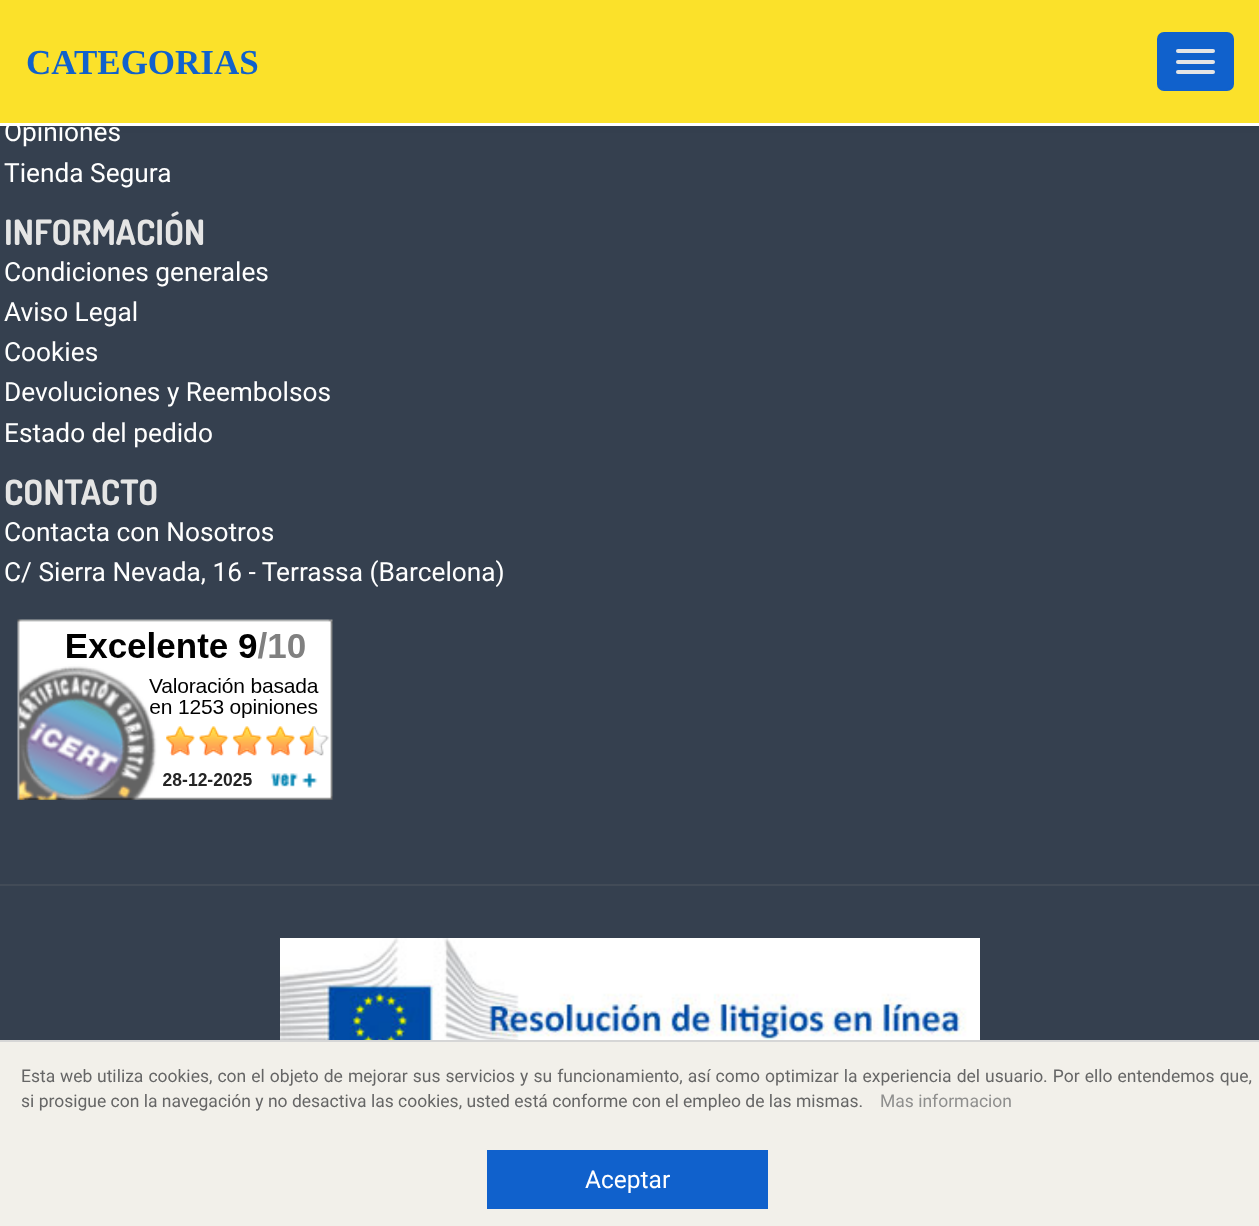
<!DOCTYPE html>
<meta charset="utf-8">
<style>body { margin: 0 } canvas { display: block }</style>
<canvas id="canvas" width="1259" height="1226"></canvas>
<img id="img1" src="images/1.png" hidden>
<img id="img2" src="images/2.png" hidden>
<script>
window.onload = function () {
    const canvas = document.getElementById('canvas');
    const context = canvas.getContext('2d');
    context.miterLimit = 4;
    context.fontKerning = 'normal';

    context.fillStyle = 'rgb(53, 64, 79)';
    context.fillRect(0, 0, 1259, 1226);
    context.fillStyle = 'rgba(0, 0, 0, 0.08)';
    context.filter = 'blur(2.5px)';
    context.beginPath();
    context.rect(0, 2, 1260, 126);
    context.fill();
    context.filter = 'none';
    context.fillStyle = 'rgb(255, 255, 255)';
    context.fillRect(0, 123, 1259, 3);
    context.drawImage(document.getElementById('img1'), 17, 619, 316, 181);
    context.fillStyle = 'rgb(66, 75, 87)';
    context.fillRect(0, 884, 1259, 2);
    context.drawImage(document.getElementById('img2'), 280, 938, 700, 102);
    context.fillStyle = 'rgb(242, 240, 234)';
    context.fillRect(0, 1042, 1259, 184);
    context.fillStyle = 'rgb(214, 214, 214)';
    context.fillRect(0, 1040, 1259, 2);
    context.fillStyle = 'rgb(16, 97, 204)';
    context.fillRect(487, 1150, 281, 59);
    context.font = '26.25px Roboto';
    context.fillStyle = 'rgb(255, 255, 255)';
    context.fillText('Opiniones', 4, 141);
    context.fillStyle = 'rgb(251, 225, 42)';
    context.fillRect(0, 0, 1259, 123);
    context.fillStyle = 'rgb(16, 97, 204)';
    context.beginPath();
    context.roundRect(1158, 33, 75, 57, 6);
    context.fill();
    context.strokeStyle = 'rgb(16, 97, 204)';
    context.lineWidth = 2;
    context.stroke();
    context.fillStyle = 'rgb(229, 229, 229)';
    context.beginPath();
    context.roundRect(1176, 70, 39, 4, 2);
    context.fill();
    context.beginPath();
    context.roundRect(1176, 60, 39, 4, 2);
    context.fill();
    context.beginPath();
    context.roundRect(1176, 49, 39, 4, 2);
    context.fill();
    context.font = 'bold 35px Liberation Serif';
    context.fillStyle = 'rgb(16, 97, 204)';
    context.fillText('CATEGORIAS', 26, 74);
    context.font = '26.25px Roboto';
    context.fillStyle = 'rgb(255, 255, 255)';
    context.fillText('Tienda Segura', 4, 182);
    context.font = 'bold 35px Dosis';
    context.fillStyle = 'rgb(229, 229, 229)';
    context.fillText('INFORMACIÓN', 4, 245);
    context.font = '26.25px Roboto';
    context.fillStyle = 'rgb(255, 255, 255)';
    context.fillText('Condiciones generales', 4, 281);
    context.fillText('Aviso Legal', 4, 321);
    context.fillText('Cookies', 4, 361);
    context.fillText('Devoluciones y Reembolsos', 4, 401);
    context.fillText('Estado del pedido', 4, 442);
    context.font = 'bold 35px Dosis';
    context.fillStyle = 'rgb(229, 229, 229)';
    context.fillText('CONTACTO', 4, 505);
    context.font = '26.25px Roboto';
    context.fillStyle = 'rgb(255, 255, 255)';
    context.fillText('Contacta con Nosotros', 4, 541);
    context.fillText('C/ Sierra Nevada, 16 - Terrassa (Barcelona)', 4, 581);
    context.font = '17.5px Roboto';
    context.fillStyle = 'rgb(102, 102, 102)';
    context.fillText('Esta', 21, 1082);
    context.fillText('web', 60, 1082);
    context.wordSpacing = '0.7px';
    context.fillText('utiliza cookies, con el objeto de mejorar sus servicios y su funcionamiento, así como optimizar la experiencia del usuario. Por ello entendemos que,', 97, 1082);
    context.wordSpacing = '0px';
    context.fillText('si prosigue con la navegación y no desactiva las cookies, usted está conforme con el empleo de las mismas.', 21, 1107);
    context.fillStyle = 'rgb(143, 143, 142)';
    context.fillText('Mas informacion', 880, 1107);
    context.font = '24.5px Roboto';
    context.fillStyle = 'rgb(255, 255, 255)';
    context.fillText('Aceptar', 585, 1188);
};
</script>
